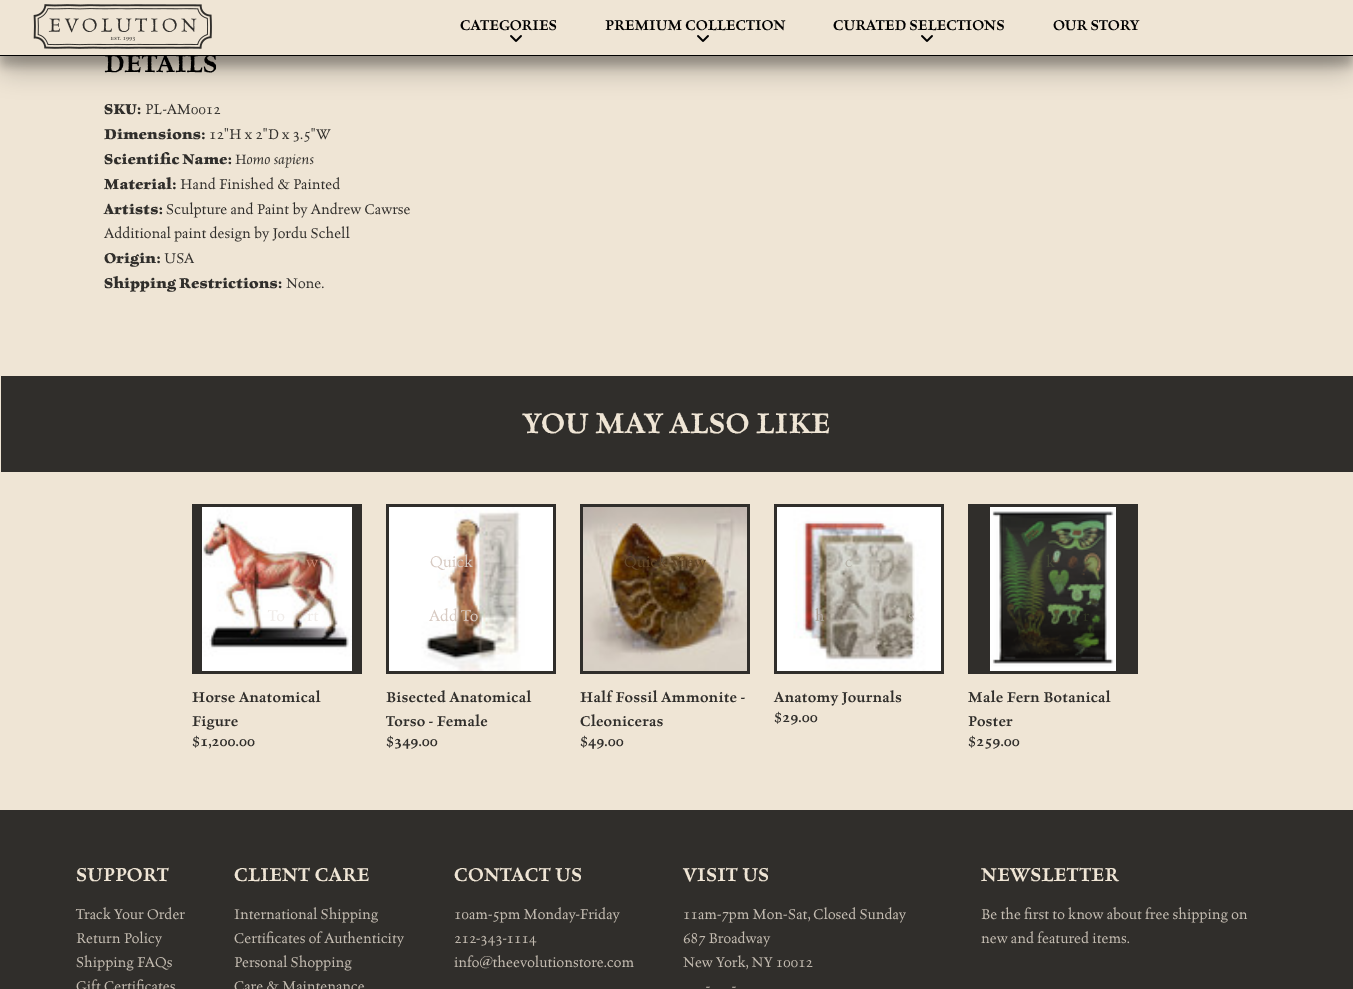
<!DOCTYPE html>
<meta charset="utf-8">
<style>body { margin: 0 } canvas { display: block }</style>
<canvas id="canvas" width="1353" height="989"></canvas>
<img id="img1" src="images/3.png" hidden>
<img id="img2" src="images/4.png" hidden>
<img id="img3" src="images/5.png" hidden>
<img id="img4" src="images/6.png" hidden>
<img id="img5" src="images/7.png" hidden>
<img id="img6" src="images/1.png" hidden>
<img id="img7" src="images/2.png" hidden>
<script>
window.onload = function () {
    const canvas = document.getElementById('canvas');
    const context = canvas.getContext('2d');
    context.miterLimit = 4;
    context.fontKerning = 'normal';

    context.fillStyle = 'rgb(239, 229, 213)';
    context.fillRect(0, 0, 1353, 989);
    context.fillStyle = 'rgba(0, 0, 0, 0.22)';
    context.filter = 'blur(5px)';
    context.beginPath();
    context.rect(0, 10, 1353, 56);
    context.fill();
    context.filter = 'none';
    context.fillStyle = 'rgba(0, 0, 0, 0.25)';
    context.filter = 'blur(14px)';
    context.beginPath();
    context.rect(0, 14, 1353, 56);
    context.fill();
    context.filter = 'none';
    context.fillStyle = 'rgb(0, 0, 0)';
    context.fillRect(0, 55, 1353, 1);
    context.fillStyle = 'rgb(48, 46, 43)';
    context.fillRect(1, 376, 1352, 96);
    context.fillRect(192, 504, 170, 170);
    context.drawImage(document.getElementById('img1'), 202, 507, 150, 164);
    context.fillRect(386, 504, 170, 170);
    context.drawImage(document.getElementById('img2'), 389, 507, 164, 164);
    context.fillRect(580, 504, 170, 170);
    context.drawImage(document.getElementById('img3'), 583, 507, 164, 164);
    context.fillRect(774, 504, 170, 170);
    context.drawImage(document.getElementById('img4'), 777, 507, 164, 164);
    context.fillRect(968, 504, 170, 170);
    context.drawImage(document.getElementById('img5'), 990, 507, 126, 164);
    context.fillRect(0, 810, 1353, 179);
    context.letterSpacing = '0.25px';
    context.font = '600 28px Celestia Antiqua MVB';
    context.fillStyle = 'rgb(0, 0, 0)';
    context.fillText('DETAILS', 104, 72);
    context.fillStyle = 'rgb(239, 229, 213)';
    context.fillRect(0, 0, 1353, 55);
    context.drawImage(document.getElementById('img6'), 33, 4, 179, 45);
    context.letterSpacing = '0px';
    context.font = '600 16px Celestia Antiqua MVB';
    context.fillStyle = 'rgb(0, 0, 0)';
    context.fillText('OUR STORY', 1053, 30);
    context.drawImage(document.getElementById('img7'), 921, 35, 12, 7);
    context.fillText('CURATED SELECTIONS', 833, 30);
    context.drawImage(document.getElementById('img7'), 697, 35, 12, 7);
    context.fillText('PREMIUM COLLECTION', 605, 30);
    context.drawImage(document.getElementById('img7'), 510, 35, 12, 7);
    context.fillText('CATEGORIES', 460, 30);
    context.font = 'bold 16px Celestia Antiqua MVB';
    context.fillStyle = 'rgb(48, 46, 43)';
    context.fillText('SKU:', 104, 114);
    context.font = '16px Celestia Antiqua MVB';
    context.fillText('PL-AM0012', 145, 114);
    context.font = 'bold 16px Celestia Antiqua MVB';
    context.fillText('Dimensions:', 104, 139);
    context.font = '16px Celestia Antiqua MVB';
    context.fillText('12"H x 2"D x 3.5"W', 209, 139);
    context.font = 'bold 16px Celestia Antiqua MVB';
    context.fillText('Scientific Name:', 104, 164);
    context.font = 'italic 16px Celestia Antiqua MVB';
    context.fillText('Homo sapiens', 235, 164);
    context.font = 'bold 16px Celestia Antiqua MVB';
    context.fillText('Material:', 104, 189);
    context.font = '16px Celestia Antiqua MVB';
    context.fillText('Hand Finished & Painted', 180, 189);
    context.font = 'bold 16px Celestia Antiqua MVB';
    context.fillText('Artists:', 104, 214);
    context.font = '16px Celestia Antiqua MVB';
    context.fillText('Sculpture and Paint by Andrew Cawrse', 166, 214);
    context.fillText('Additional paint design by Jordu Schell', 104, 238);
    context.font = 'bold 16px Celestia Antiqua MVB';
    context.fillText('Origin:', 104, 263);
    context.font = '16px Celestia Antiqua MVB';
    context.fillText('USA', 164, 263);
    context.font = 'bold 16px Celestia Antiqua MVB';
    context.fillText('Shipping Restrictions:', 104, 288);
    context.font = '16px Celestia Antiqua MVB';
    context.fillText('None.', 286, 288);
    context.letterSpacing = '0.25px';
    context.font = '600 32px Celestia Antiqua MVB';
    context.fillStyle = 'rgb(239, 229, 213)';
    context.fillText('YOU MAY ALSO LIKE', 523, 433);
    context.letterSpacing = '0px';
    context.font = '17.5px Celestia Antiqua MVB';
    context.fillStyle = 'rgb(194, 129, 109)';
    context.fillText('w', 306, 567);
    context.fillStyle = 'rgb(240, 236, 233)';
    context.fillText('To', 268, 621);
    context.fillText('rt', 307, 621);
    context.letterSpacing = '0.25px';
    context.font = '600 16px Celestia Antiqua MVB';
    context.fillStyle = 'rgb(48, 46, 43)';
    context.fillText('Horse Anatomical', 192, 702);
    context.fillText('Figure', 192, 726);
    context.letterSpacing = '0px';
    context.fillText('$1,200.00', 192, 746);
    context.font = '17.5px Celestia Antiqua MVB';
    context.fillStyle = 'rgb(215, 202, 194)';
    context.fillText('Quick', 430, 567);
    context.fillText('Add To', 429, 621);
    context.letterSpacing = '0.25px';
    context.font = '600 16px Celestia Antiqua MVB';
    context.fillStyle = 'rgb(48, 46, 43)';
    context.fillText('Bisected Anatomical', 386, 702);
    context.fillText('Torso - Female', 386, 726);
    context.letterSpacing = '0px';
    context.fillText('$349.00', 386, 746);
    context.font = '17.5px Celestia Antiqua MVB';
    context.fillStyle = 'rgb(100, 72, 41)';
    context.fillText('Quick View', 624, 567);
    context.letterSpacing = '0.25px';
    context.font = '600 16px Celestia Antiqua MVB';
    context.fillStyle = 'rgb(48, 46, 43)';
    context.fillText('Half Fossil Ammonite -', 580, 702);
    context.fillText('Cleoniceras', 580, 726);
    context.letterSpacing = '0px';
    context.fillText('$49.00', 580, 746);
    context.font = '17.5px Celestia Antiqua MVB';
    context.fillStyle = 'rgb(183, 179, 169)';
    context.fillText('c', 845, 567);
    context.fillStyle = 'rgb(173, 163, 154)';
    context.fillText('h', 815, 621);
    context.fillText('s', 908, 621);
    context.letterSpacing = '0.25px';
    context.font = '600 16px Celestia Antiqua MVB';
    context.fillStyle = 'rgb(48, 46, 43)';
    context.fillText('Anatomy Journals', 774, 702);
    context.letterSpacing = '0px';
    context.fillText('$29.00', 774, 722);
    context.font = '17.5px Celestia Antiqua MVB';
    context.fillStyle = 'rgb(67, 71, 54)';
    context.fillText('k', 1046, 567);
    context.fillStyle = 'rgb(49, 53, 37)';
    context.fillText('r', 1083, 621);
    context.letterSpacing = '0.25px';
    context.font = '600 16px Celestia Antiqua MVB';
    context.fillStyle = 'rgb(48, 46, 43)';
    context.fillText('Male Fern Botanical', 968, 702);
    context.fillText('Poster', 968, 726);
    context.letterSpacing = '0px';
    context.fillText('$259.00', 968, 746);
    context.letterSpacing = '0.25px';
    context.font = '600 21px Celestia Antiqua MVB';
    context.fillStyle = 'rgb(239, 229, 213)';
    context.fillText('SUPPORT', 76, 881);
    context.letterSpacing = '0px';
    context.font = '16px Celestia Antiqua MVB';
    context.fillStyle = 'rgb(197, 189, 178)';
    context.fillText('Track Your Order', 76, 919);
    context.fillText('Return Policy', 76, 943);
    context.fillText('Shipping FAQs', 76, 967);
    context.fillText('Gift Certificates', 76, 991);
    context.letterSpacing = '0.25px';
    context.font = '600 21px Celestia Antiqua MVB';
    context.fillStyle = 'rgb(239, 229, 213)';
    context.fillText('CLIENT CARE', 234, 881);
    context.letterSpacing = '0px';
    context.font = '16px Celestia Antiqua MVB';
    context.fillStyle = 'rgb(197, 189, 178)';
    context.fillText('International Shipping', 234, 919);
    context.fillText('Certificates of Authenticity', 234, 943);
    context.fillText('Personal Shopping', 234, 967);
    context.fillText('Care & Maintenance', 234, 991);
    context.letterSpacing = '0.25px';
    context.font = '600 21px Celestia Antiqua MVB';
    context.fillStyle = 'rgb(239, 229, 213)';
    context.fillText('CONTACT US', 454, 881);
    context.letterSpacing = '0px';
    context.font = '16px Celestia Antiqua MVB';
    context.fillStyle = 'rgb(197, 189, 178)';
    context.fillText('10am-5pm Monday-Friday', 454, 919);
    context.fillText('212-343-1114', 454, 943);
    context.fillText('info@theevolutionstore.com', 454, 967);
    context.letterSpacing = '0.25px';
    context.font = '600 21px Celestia Antiqua MVB';
    context.fillStyle = 'rgb(239, 229, 213)';
    context.fillText('VISIT US', 683, 881);
    context.letterSpacing = '0px';
    context.font = '16px Celestia Antiqua MVB';
    context.fillStyle = 'rgb(197, 189, 178)';
    context.fillText('11am-7pm Mon-Sat, Closed Sunday', 683, 919);
    context.fillText('687 Broadway', 683, 943);
    context.fillText('New York, NY 10012', 683, 967);
    context.fillText('-', 706, 991);
    context.fillText('-', 732, 991);
    context.letterSpacing = '0.25px';
    context.font = '600 21px Celestia Antiqua MVB';
    context.fillStyle = 'rgb(239, 229, 213)';
    context.fillText('NEWSLETTER', 981, 881);
    context.letterSpacing = '0px';
    context.font = '16px Celestia Antiqua MVB';
    context.fillStyle = 'rgb(197, 189, 178)';
    context.fillText('Be the first to know about free shipping on', 981, 919);
    context.fillText('new and featured items.', 981, 943);
};
</script>
